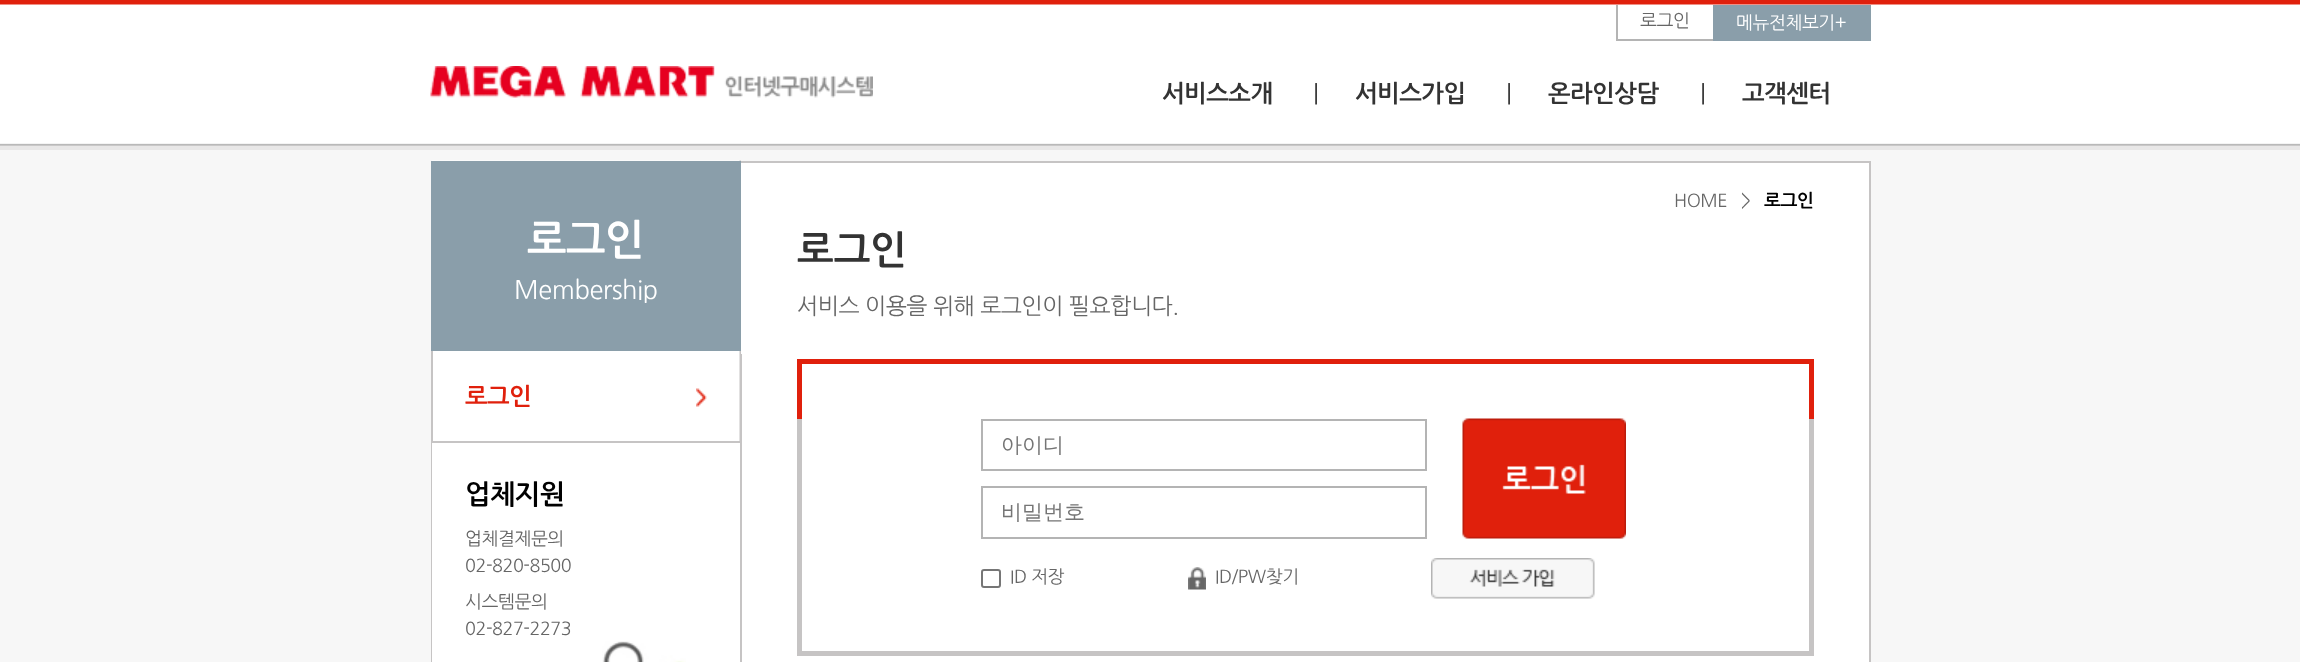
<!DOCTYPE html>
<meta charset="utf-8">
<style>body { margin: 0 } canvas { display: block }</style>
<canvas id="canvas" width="2300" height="662"></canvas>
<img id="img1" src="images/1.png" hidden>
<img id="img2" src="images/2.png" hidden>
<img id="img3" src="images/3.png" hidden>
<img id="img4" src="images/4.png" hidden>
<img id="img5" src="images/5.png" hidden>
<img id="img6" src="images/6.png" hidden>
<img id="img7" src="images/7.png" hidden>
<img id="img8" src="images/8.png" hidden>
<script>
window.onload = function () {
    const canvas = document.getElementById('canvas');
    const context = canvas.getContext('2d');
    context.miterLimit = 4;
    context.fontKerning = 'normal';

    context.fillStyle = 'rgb(255, 255, 255)';
    context.fillRect(0, 0, 2300, 662);
    context.drawImage(document.getElementById('img1'), 0, 0, 2300, 150);
    context.fillStyle = 'rgb(180, 180, 180)';
    context.fillRect(1616, 39, 97, 2);
    context.fillRect(1616, 5, 2, 36);
    context.fillStyle = 'rgb(138, 158, 170)';
    context.fillRect(1713, 5, 158, 36);
    context.drawImage(document.getElementById('img2'), 430, 66, 443, 32);
    context.fillStyle = 'rgb(247, 247, 247)';
    context.fillRect(0, 150, 2300, 512);
    context.fillStyle = 'rgb(255, 255, 255)';
    context.fillRect(741, 163, 1128, 499);
    context.drawImage(document.getElementById('img3'), 432, 160, 309, 281);
    context.strokeStyle = 'rgb(198, 196, 196)';
    context.lineWidth = 2;
    context.strokeRect(432, 162, 1438, 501);
    context.fillStyle = 'rgb(138, 158, 170)';
    context.fillRect(431, 161, 310, 190);
    context.fillStyle = 'rgb(224, 32, 12)';
    context.fillRect(797, 359, 1017, 5);
    context.fillRect(1809, 359, 5, 60);
    context.fillRect(797, 359, 5, 60);
    context.fillStyle = 'rgb(198, 196, 196)';
    context.fillRect(1809, 419, 5, 237);
    context.fillRect(797, 651, 1017, 5);
    context.fillRect(797, 419, 5, 237);
    context.strokeStyle = 'rgb(180, 180, 180)';
    context.strokeRect(982, 420, 444, 50);
    context.strokeRect(982, 487, 444, 51);
    context.drawImage(document.getElementById('img4'), 1462, 418, 164, 121);
    context.beginPath();
    context.roundRect(982, 570, 18, 17, 2);
    context.strokeStyle = 'rgb(118, 118, 118)';
    context.stroke();
    context.drawImage(document.getElementById('img5'), 1188, 567, 18, 23);
    context.drawImage(document.getElementById('img6'), 1431, 558, 164, 41);
    context.fillRect(740, 354, 2, 308);
    context.drawImage(document.getElementById('img7'), 696, 388, 11, 19);
    context.fillRect(432, 441, 308, 2);
    context.fillStyle = 'rgb(255, 255, 255)';
    context.fillRect(432, 443, 308, 219);
    context.drawImage(document.getElementById('img8'), 602, 641, 84, 21);
    context.letterSpacing = '-0.45px';
    context.font = '18px NanumGothic';
    context.fillStyle = 'rgb(102, 102, 102)';
    context.fillText('로그인', 1640, 27);
    context.fillStyle = 'rgb(255, 255, 255)';
    context.fillText('메뉴전체보기+', 1736, 29);
    context.font = 'bold 24px NanumGothic';
    context.fillStyle = 'rgb(51, 51, 51)';
    context.fillText('서비스소개', 1162, 102);
    context.font = '24px NanumGothic';
    context.fillText('|', 1313, 102);
    context.font = 'bold 24px NanumGothic';
    context.fillText('서비스가입', 1355, 102);
    context.font = '24px NanumGothic';
    context.fillText('|', 1506, 102);
    context.font = 'bold 24px NanumGothic';
    context.fillText('온라인상담', 1548, 102);
    context.font = '24px NanumGothic';
    context.fillText('|', 1700, 102);
    context.font = 'bold 24px NanumGothic';
    context.fillText('고객센터', 1742, 102);
    context.font = 'bold 42px NanumGothic';
    context.fillStyle = 'rgb(255, 255, 255)';
    context.fillText('로그인', 527, 255);
    context.font = '25.5px NanumGothic';
    context.fillText('Membership', 514, 299);
    context.font = '18px NanumGothic';
    context.fillStyle = 'rgb(102, 102, 102)';
    context.fillText('HOME', 1674, 207);
    context.fillText('>', 1741, 207);
    context.font = 'bold 18px NanumGothic';
    context.fillStyle = 'rgb(0, 0, 0)';
    context.fillText('로그인', 1764, 207);
    context.letterSpacing = '0px';
    context.font = 'bold 39px NanumGothic';
    context.fillStyle = 'rgb(51, 51, 51)';
    context.fillText('로그인', 797, 264);
    context.letterSpacing = '-0.45px';
    context.font = '22.5px NanumGothic';
    context.fillStyle = 'rgb(102, 102, 102)';
    context.fillText('서비스 이용을 위해 로그인이 필요합니다.', 797, 314);
    context.letterSpacing = '0px';
    context.font = '500 21px WenQuanYi Zen Hei';
    context.fillStyle = 'rgb(117, 117, 117)';
    context.fillText('아이디', 1001, 452);
    context.fillText('비밀번호', 1001, 519);
    context.letterSpacing = '-0.45px';
    context.font = '18px NanumGothic';
    context.fillStyle = 'rgb(102, 102, 102)';
    context.fillText('ID 저장', 1010, 583);
    context.fillText('ID/PW찾기', 1215, 583);
    context.font = 'bold 24px NanumGothic';
    context.fillStyle = 'rgb(224, 32, 12)';
    context.fillText('로그인', 465, 405);
    context.font = 'bold 27px NanumGothic';
    context.fillStyle = 'rgb(0, 0, 0)';
    context.fillText('업체지원', 465, 504);
    context.font = '18px NanumGothic';
    context.fillStyle = 'rgb(102, 102, 102)';
    context.fillText('업체결제문의', 465, 545);
    context.fillText('02-820-8500', 465, 572);
    context.fillText('시스템문의', 465, 608);
    context.fillText('02-827-2273', 465, 635);
};
</script>
